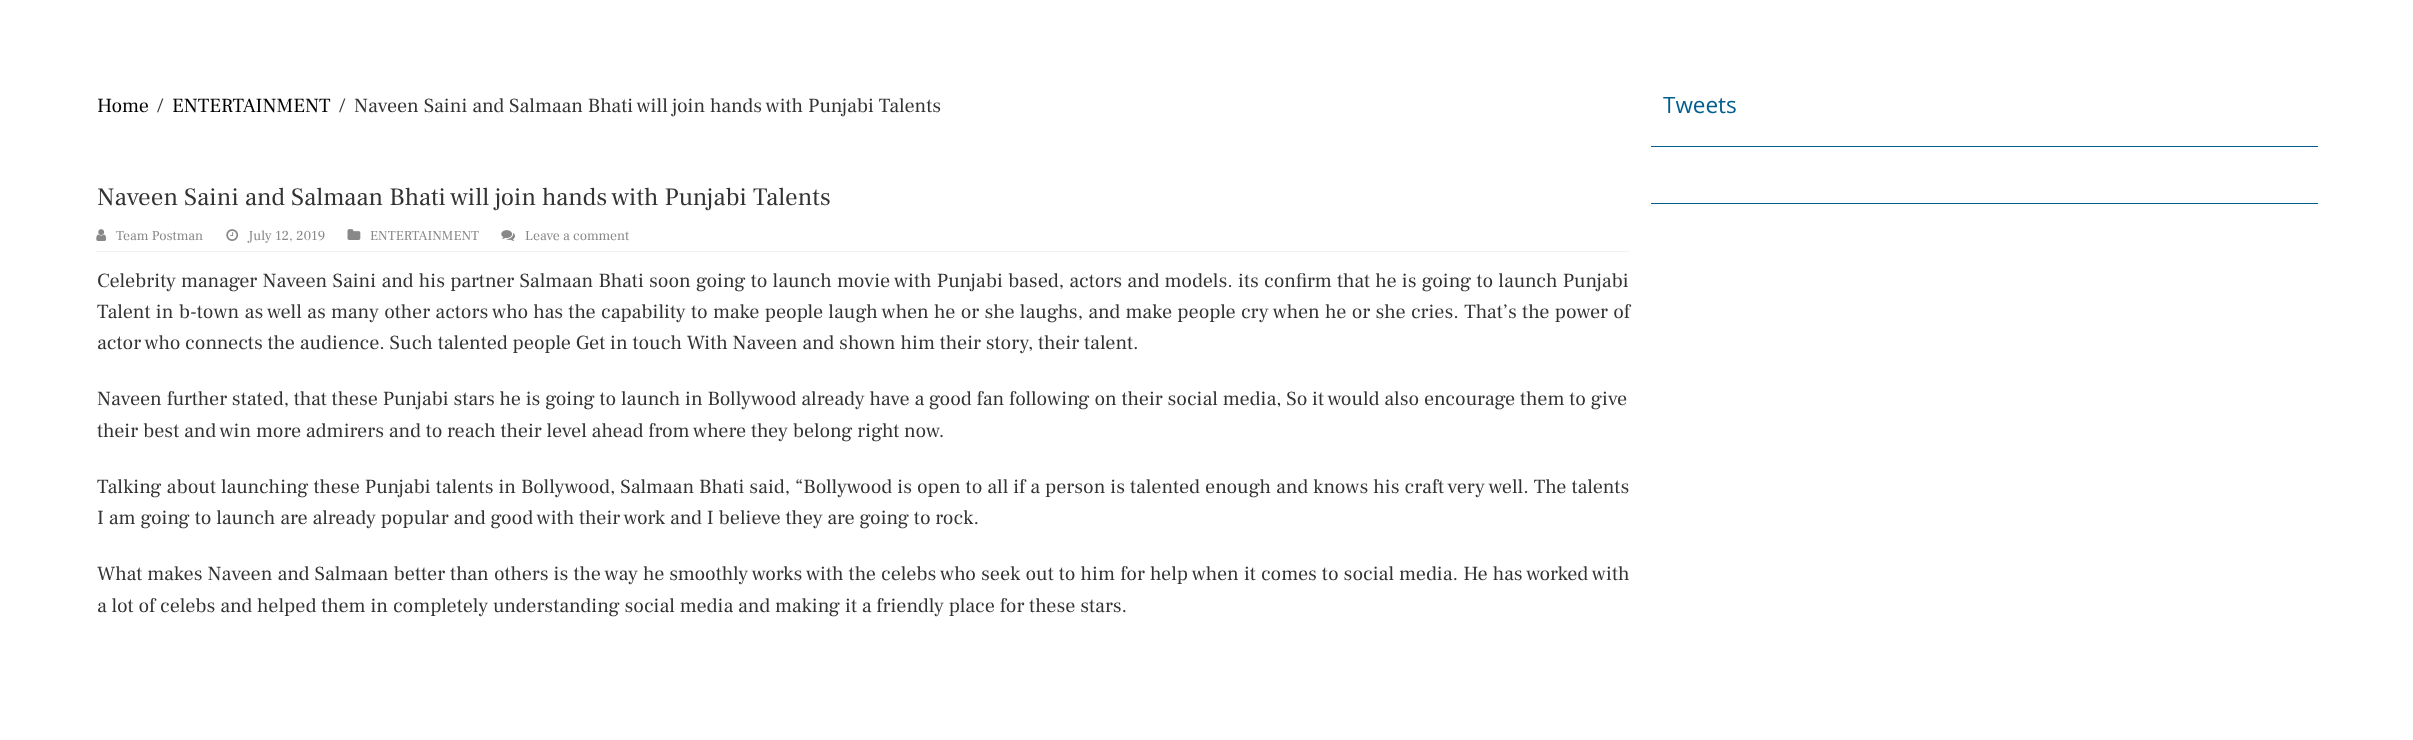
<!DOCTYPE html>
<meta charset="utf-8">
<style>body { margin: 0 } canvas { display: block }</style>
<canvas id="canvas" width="2413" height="740"></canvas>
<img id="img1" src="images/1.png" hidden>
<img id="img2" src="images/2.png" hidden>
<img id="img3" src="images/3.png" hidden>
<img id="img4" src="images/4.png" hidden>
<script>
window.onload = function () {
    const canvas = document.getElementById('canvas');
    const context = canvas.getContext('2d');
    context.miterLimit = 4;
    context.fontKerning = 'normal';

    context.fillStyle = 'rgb(255, 255, 255)';
    context.fillRect(0, 0, 2413, 740);
    context.fillStyle = 'rgb(242, 242, 242)';
    context.fillRect(96, 251, 1533, 1);
    context.drawImage(document.getElementById('img1'), 96, 229, 11, 12);
    context.drawImage(document.getElementById('img2'), 226, 229, 13, 12);
    context.drawImage(document.getElementById('img3'), 347, 229, 14, 11);
    context.drawImage(document.getElementById('img4'), 501, 230, 14, 11);
    context.fillStyle = 'rgb(1, 94, 142)';
    context.fillRect(1651, 146, 667, 1);
    context.fillRect(1651, 203, 667, 1);
    context.font = '20px Frank Ruhl Libre';
    context.fillStyle = 'rgb(0, 0, 0)';
    context.fillText('Home', 97, 112);
    context.fillStyle = 'rgb(51, 51, 51)';
    context.fillText('/', 157, 112);
    context.fillStyle = 'rgb(0, 0, 0)';
    context.fillText('ENTERTAINMENT', 172, 112);
    context.fillStyle = 'rgb(51, 51, 51)';
    context.fillText('/', 339, 112);
    context.fillText('Naveen Saini and Salmaan Bhati will join hands with Punjabi Talents', 354, 112);
    context.font = '25px Frank Ruhl Libre';
    context.fillText('Naveen Saini and Salmaan Bhati will join hands with Punjabi Talents', 97, 205);
    context.font = '13.75px Frank Ruhl Libre';
    context.fillStyle = 'rgb(136, 136, 136)';
    context.fillText('Team Postman', 116, 240);
    context.fillText('July 12, 2019', 248, 240);
    context.fillText('ENTERTAINMENT', 370, 240);
    context.fillText('Leave a comment', 525, 240);
    context.wordSpacing = '0.4px';
    context.font = '20px Frank Ruhl Libre';
    context.fillStyle = 'rgb(51, 51, 51)';
    context.fillText('Celebrity manager Naveen Saini and his partner Salmaan Bhati soon going to launch movie with Punjabi based, actors and models. its confirm that he is going to launch Punjabi', 97, 287);
    context.wordSpacing = '0.5px';
    context.fillText('Talent in b-town as well as many other actors who has the capability to make people laugh when he or she laughs, and make people cry when he or she cries. That’s the power of', 97, 318);
    context.wordSpacing = '0px';
    context.fillText('actor who connects the audience. Such talented people Get in touch With Naveen and shown him their story, their talent.', 97, 349);
    context.fillText('Naveen further stated, that these Punjabi stars he is going to launch in Bollywood already have a good fan following on their social media, So it would also encourage them to give', 97, 405);
    context.fillText('their best and win more admirers and to reach their level ahead from where they belong right now.', 97, 437);
    context.wordSpacing = '0.15px';
    context.fillText('Talking about launching these Punjabi talents in Bollywood, Salmaan Bhati said, “Bollywood is open to all if a person is talented enough and knows his craft very well. The talents', 97, 493);
    context.wordSpacing = '0px';
    context.fillText('I am going to launch are already popular and good with their work and I believe they are going to rock.', 97, 524);
    context.wordSpacing = '0.25px';
    context.fillText('What makes Naveen and Salmaan better than others is the way he smoothly works with the celebs who seek out to him for help when it comes to social media. He has worked with', 97, 580);
    context.wordSpacing = '0px';
    context.fillText('a lot of celebs and helped them in completely understanding social media and making it a friendly place for these stars.', 97, 612);
    context.font = '22.5px Open Sans';
    context.fillStyle = 'rgb(1, 94, 142)';
    context.fillText('Tweets', 1663, 113);
};
</script>
